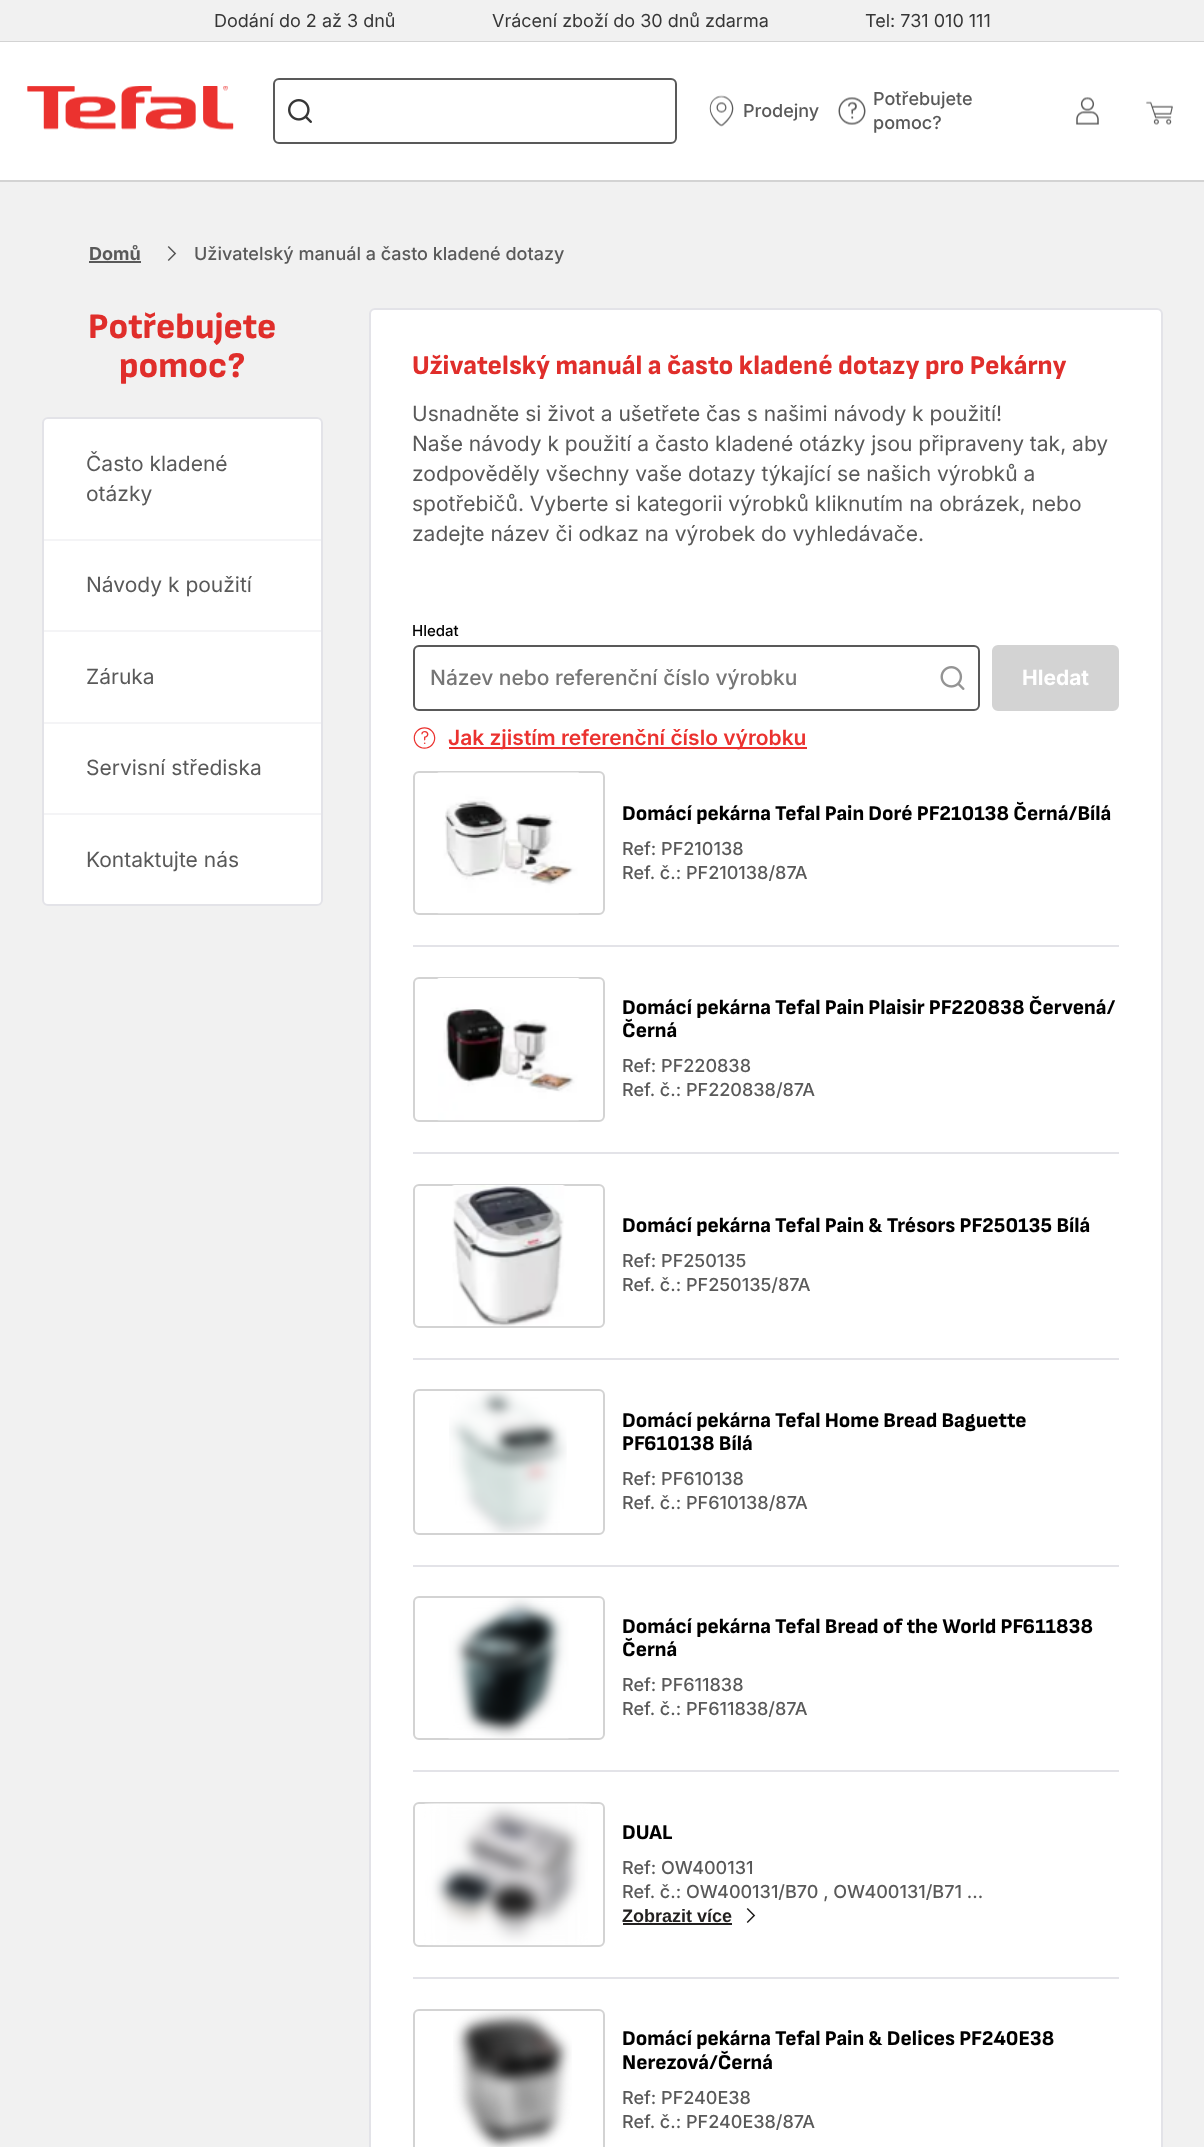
<!DOCTYPE html>
<meta charset="utf-8">
<style>body { margin: 0 } canvas { display: block }</style>
<canvas id="canvas" width="1204" height="2147"></canvas>
<img id="img1" src="images/1.png" hidden>
<img id="img2" src="images/2.png" hidden>
<img id="img3" src="images/3.png" hidden>
<img id="img4" src="images/4.png" hidden>
<img id="img5" src="images/5.png" hidden>
<img id="img6" src="images/6.png" hidden>
<img id="img7" src="images/7.png" hidden>
<img id="img8" src="images/8.png" hidden>
<img id="img9" src="images/9.png" hidden>
<img id="img10" src="images/10.png" hidden>
<img id="img11" src="images/11.png" hidden>
<img id="img12" src="images/12.png" hidden>
<img id="img13" src="images/13.png" hidden>
<img id="img14" src="images/14.png" hidden>
<img id="img15" src="images/15.png" hidden>
<img id="img16" src="images/16.png" hidden>
<img id="img17" src="images/17.png" hidden>
<script>
window.onload = function () {
    const canvas = document.getElementById('canvas');
    const context = canvas.getContext('2d');
    context.miterLimit = 4;
    context.fontKerning = 'normal';

    context.fillStyle = 'rgb(241, 241, 241)';
    context.fillRect(0, 0, 1204, 2147);
    context.fillStyle = 'rgb(211, 211, 211)';
    context.fillRect(0, 41, 1204, 1);
    context.fillStyle = 'rgb(255, 255, 255)';
    context.fillRect(0, 42, 1204, 138);
    context.fillStyle = 'rgb(211, 211, 211)';
    context.fillRect(0, 180, 1204, 2);
    context.drawImage(document.getElementById('img1'), 27, 86, 207, 44);
    context.beginPath();
    context.roundRect(274, 79, 402, 64, 5);
    context.strokeStyle = 'rgb(89, 89, 89)';
    context.lineWidth = 2;
    context.stroke();
    context.drawImage(document.getElementById('img2'), 288, 99, 24, 24);
    context.drawImage(document.getElementById('img3'), 709, 95, 25, 32);
    context.drawImage(document.getElementById('img4'), 838, 97, 28, 28);
    context.drawImage(document.getElementById('img5'), 1076, 97, 23, 28);
    context.drawImage(document.getElementById('img6'), 1146, 101, 27, 24);
    context.fillStyle = 'rgb(89, 89, 89)';
    context.fillRect(89, 261, 52, 2);
    context.drawImage(document.getElementById('img7'), 167, 246, 10, 15);
    context.fillStyle = 'rgb(255, 255, 255)';
    context.beginPath();
    context.roundRect(43, 418, 279, 487, 5);
    context.fill();
    context.strokeStyle = 'rgb(227, 227, 232)';
    context.stroke();
    context.fillStyle = 'rgb(244, 244, 246)';
    context.fillRect(44, 539, 277, 2);
    context.fillRect(44, 630, 277, 2);
    context.fillRect(44, 722, 277, 2);
    context.fillRect(44, 813, 277, 2);
    context.fillStyle = 'rgb(255, 255, 255)';
    context.beginPath();
    context.roundRect(370, 309, 792, 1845, 5);
    context.fill();
    context.stroke();
    context.beginPath();
    context.roundRect(414, 646, 565, 64, 5);
    context.strokeStyle = 'rgb(89, 89, 89)';
    context.stroke();
    context.drawImage(document.getElementById('img8'), 940, 666, 25, 24);
    context.drawImage(document.getElementById('img9'), 413, 727, 23, 22);
    context.fillStyle = 'rgb(235, 50, 47)';
    context.fillRect(449, 747, 358, 2);
    context.fillStyle = 'rgb(211, 211, 211)';
    context.beginPath();
    context.roundRect(993, 646, 125, 64, 5);
    context.fill();
    context.strokeStyle = 'rgb(211, 211, 211)';
    context.stroke();
    context.beginPath();
    context.roundRect(414, 772, 190, 142, 5);
    context.stroke();
    context.drawImage(document.getElementById('img10'), 437, 772, 142, 142);
    context.fillStyle = 'rgb(227, 227, 232)';
    context.fillRect(413, 945, 706, 2);
    context.beginPath();
    context.roundRect(414, 978, 190, 143, 5);
    context.stroke();
    context.drawImage(document.getElementById('img11'), 437, 978, 143, 143);
    context.fillRect(413, 1152, 706, 2);
    context.beginPath();
    context.roundRect(414, 1185, 190, 142, 5);
    context.stroke();
    context.drawImage(document.getElementById('img12'), 452, 1185, 113, 141);
    context.fillRect(413, 1358, 706, 2);
    context.beginPath();
    context.roundRect(414, 1390, 190, 144, 5);
    context.stroke();
    context.drawImage(document.getElementById('img13'), 449, 1391, 118, 142);
    context.fillRect(413, 1565, 706, 2);
    context.beginPath();
    context.roundRect(414, 1597, 190, 142, 5);
    context.stroke();
    context.drawImage(document.getElementById('img14'), 448, 1598, 121, 141);
    context.fillRect(413, 1770, 706, 2);
    context.beginPath();
    context.roundRect(414, 1803, 190, 143, 5);
    context.stroke();
    context.drawImage(document.getElementById('img15'), 424, 1803, 167, 143);
    context.fillStyle = 'rgb(35, 33, 32)';
    context.fillRect(623, 1923, 109, 2);
    context.drawImage(document.getElementById('img16'), 746, 1908, 10, 15);
    context.fillStyle = 'rgb(227, 227, 232)';
    context.fillRect(413, 1977, 706, 2);
    context.beginPath();
    context.roundRect(414, 2010, 190, 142, 5);
    context.stroke();
    context.drawImage(document.getElementById('img17'), 453, 2010, 119, 137);
    context.font = '18px Inter';
    context.fillStyle = 'rgb(54, 54, 54)';
    context.fillText('Dodání do 2 až 3 dnů', 214, 27);
    context.fillText('Vrácení zboží do 30 dnů zdarma', 492, 27);
    context.fillText('Tel: 731 010 111', 865, 27);
    context.font = '500 18px Inter';
    context.fillStyle = 'rgb(89, 89, 89)';
    context.fillText('Prodejny', 743, 117);
    context.fillText('Potřebujete', 873, 105);
    context.fillText('pomoc?', 873, 129);
    context.font = 'bold 18px Inter';
    context.fillText('Domů', 89, 260);
    context.font = '500 18px Inter';
    context.fillText('Uživatelský manuál a často kladené dotazy', 194, 260);
    context.font = '800 36px Sofia Sans';
    context.fillStyle = 'rgb(224, 46, 43)';
    context.fillText('Potřebujete', 88, 338);
    context.fillText('pomoc?', 119, 377);
    context.font = '21px Inter';
    context.fillStyle = 'rgb(89, 89, 89)';
    context.fillText('Často kladené', 86, 471);
    context.fillText('otázky', 86, 501);
    context.fillText('Návody k použití', 86, 592);
    context.fillText('Záruka', 86, 684);
    context.fillText('Servisní střediska', 86, 775);
    context.fillText('Kontaktujte nás', 86, 867);
    context.font = '800 27px Sofia Sans';
    context.fillStyle = 'rgb(224, 46, 43)';
    context.fillText('Uživatelský manuál a často kladené dotazy pro Pekárny', 412, 374);
    context.font = '21px Inter';
    context.fillStyle = 'rgb(89, 89, 89)';
    context.fillText('Usnadněte si život a ušetřete čas s našimi návody k použití!', 412, 421);
    context.fillText('Naše návody k použití a často kladené otázky jsou připraveny tak, aby', 412, 451);
    context.fillText('zodpověděly všechny vaše dotazy týkající se našich výrobků a', 412, 481);
    context.fillText('spotřebičů. Vyberte si kategorii výrobků kliknutím na obrázek, nebo', 412, 511);
    context.fillText('zadejte název či odkaz na výrobek do vyhledávače.', 412, 541);
    context.font = '500 15px Inter';
    context.fillStyle = 'rgb(0, 0, 0)';
    context.fillText('Hledat', 412, 636);
    context.font = '500 21px Inter';
    context.fillStyle = 'rgb(118, 118, 118)';
    context.fillText('Název nebo referenční číslo výrobku', 430, 685);
    context.font = '600 21px Inter';
    context.fillStyle = 'rgb(235, 50, 47)';
    context.fillText('Jak zjistím referenční číslo výrobku', 448, 745);
    context.font = 'bold 21px Inter';
    context.fillStyle = 'rgb(255, 255, 255)';
    context.fillText('Hledat', 1022, 685);
    context.font = '800 21px Sofia Sans';
    context.fillStyle = 'rgb(0, 0, 0)';
    context.fillText('Domácí pekárna Tefal Pain Doré PF210138 Černá/Bílá', 622, 820);
    context.font = '500 18px Inter';
    context.fillStyle = 'rgb(89, 89, 89)';
    context.fillText('Ref: PF210138', 622, 855);
    context.fillText('Ref. č.: PF210138/87A', 622, 879);
    context.font = '800 21px Sofia Sans';
    context.fillStyle = 'rgb(0, 0, 0)';
    context.fillText('Domácí pekárna Tefal Pain Plaisir PF220838 Červená/', 622, 1014);
    context.fillText('Černá', 622, 1037);
    context.font = '500 18px Inter';
    context.fillStyle = 'rgb(89, 89, 89)';
    context.fillText('Ref: PF220838', 622, 1072);
    context.fillText('Ref. č.: PF220838/87A', 622, 1096);
    context.font = '800 21px Sofia Sans';
    context.fillStyle = 'rgb(0, 0, 0)';
    context.fillText('Domácí pekárna Tefal Pain & Trésors PF250135 Bílá', 622, 1232);
    context.font = '500 18px Inter';
    context.fillStyle = 'rgb(89, 89, 89)';
    context.fillText('Ref: PF250135', 622, 1267);
    context.fillText('Ref. č.: PF250135/87A', 622, 1291);
    context.font = '800 21px Sofia Sans';
    context.fillStyle = 'rgb(0, 0, 0)';
    context.fillText('Domácí pekárna Tefal Home Bread Baguette', 622, 1427);
    context.fillText('PF610138 Bílá', 622, 1450);
    context.font = '500 18px Inter';
    context.fillStyle = 'rgb(89, 89, 89)';
    context.fillText('Ref: PF610138', 622, 1485);
    context.fillText('Ref. č.: PF610138/87A', 622, 1509);
    context.font = '800 21px Sofia Sans';
    context.fillStyle = 'rgb(0, 0, 0)';
    context.fillText('Domácí pekárna Tefal Bread of the World PF611838', 622, 1633);
    context.fillText('Černá', 622, 1656);
    context.font = '500 18px Inter';
    context.fillStyle = 'rgb(89, 89, 89)';
    context.fillText('Ref: PF611838', 622, 1691);
    context.fillText('Ref. č.: PF611838/87A', 622, 1715);
    context.font = '800 21px Sofia Sans';
    context.fillStyle = 'rgb(0, 0, 0)';
    context.fillText('DUAL', 622, 1839);
    context.font = '500 18px Inter';
    context.fillStyle = 'rgb(89, 89, 89)';
    context.fillText('Ref: OW400131', 622, 1874);
    context.fillText('Ref. č.: OW400131/B70 , OW400131/B71 ...', 622, 1898);
    context.font = 'bold 18px Liberation Sans';
    context.fillStyle = 'rgb(35, 33, 32)';
    context.fillText('Zobrazit více', 622, 1922);
    context.font = '800 21px Sofia Sans';
    context.fillStyle = 'rgb(0, 0, 0)';
    context.fillText('Domácí pekárna Tefal Pain & Delices PF240E38', 622, 2045);
    context.fillText('Nerezová/Černá', 622, 2069);
    context.font = '500 18px Inter';
    context.fillStyle = 'rgb(89, 89, 89)';
    context.fillText('Ref: PF240E38', 622, 2104);
    context.fillText('Ref. č.: PF240E38/87A', 622, 2128);
};
</script>
